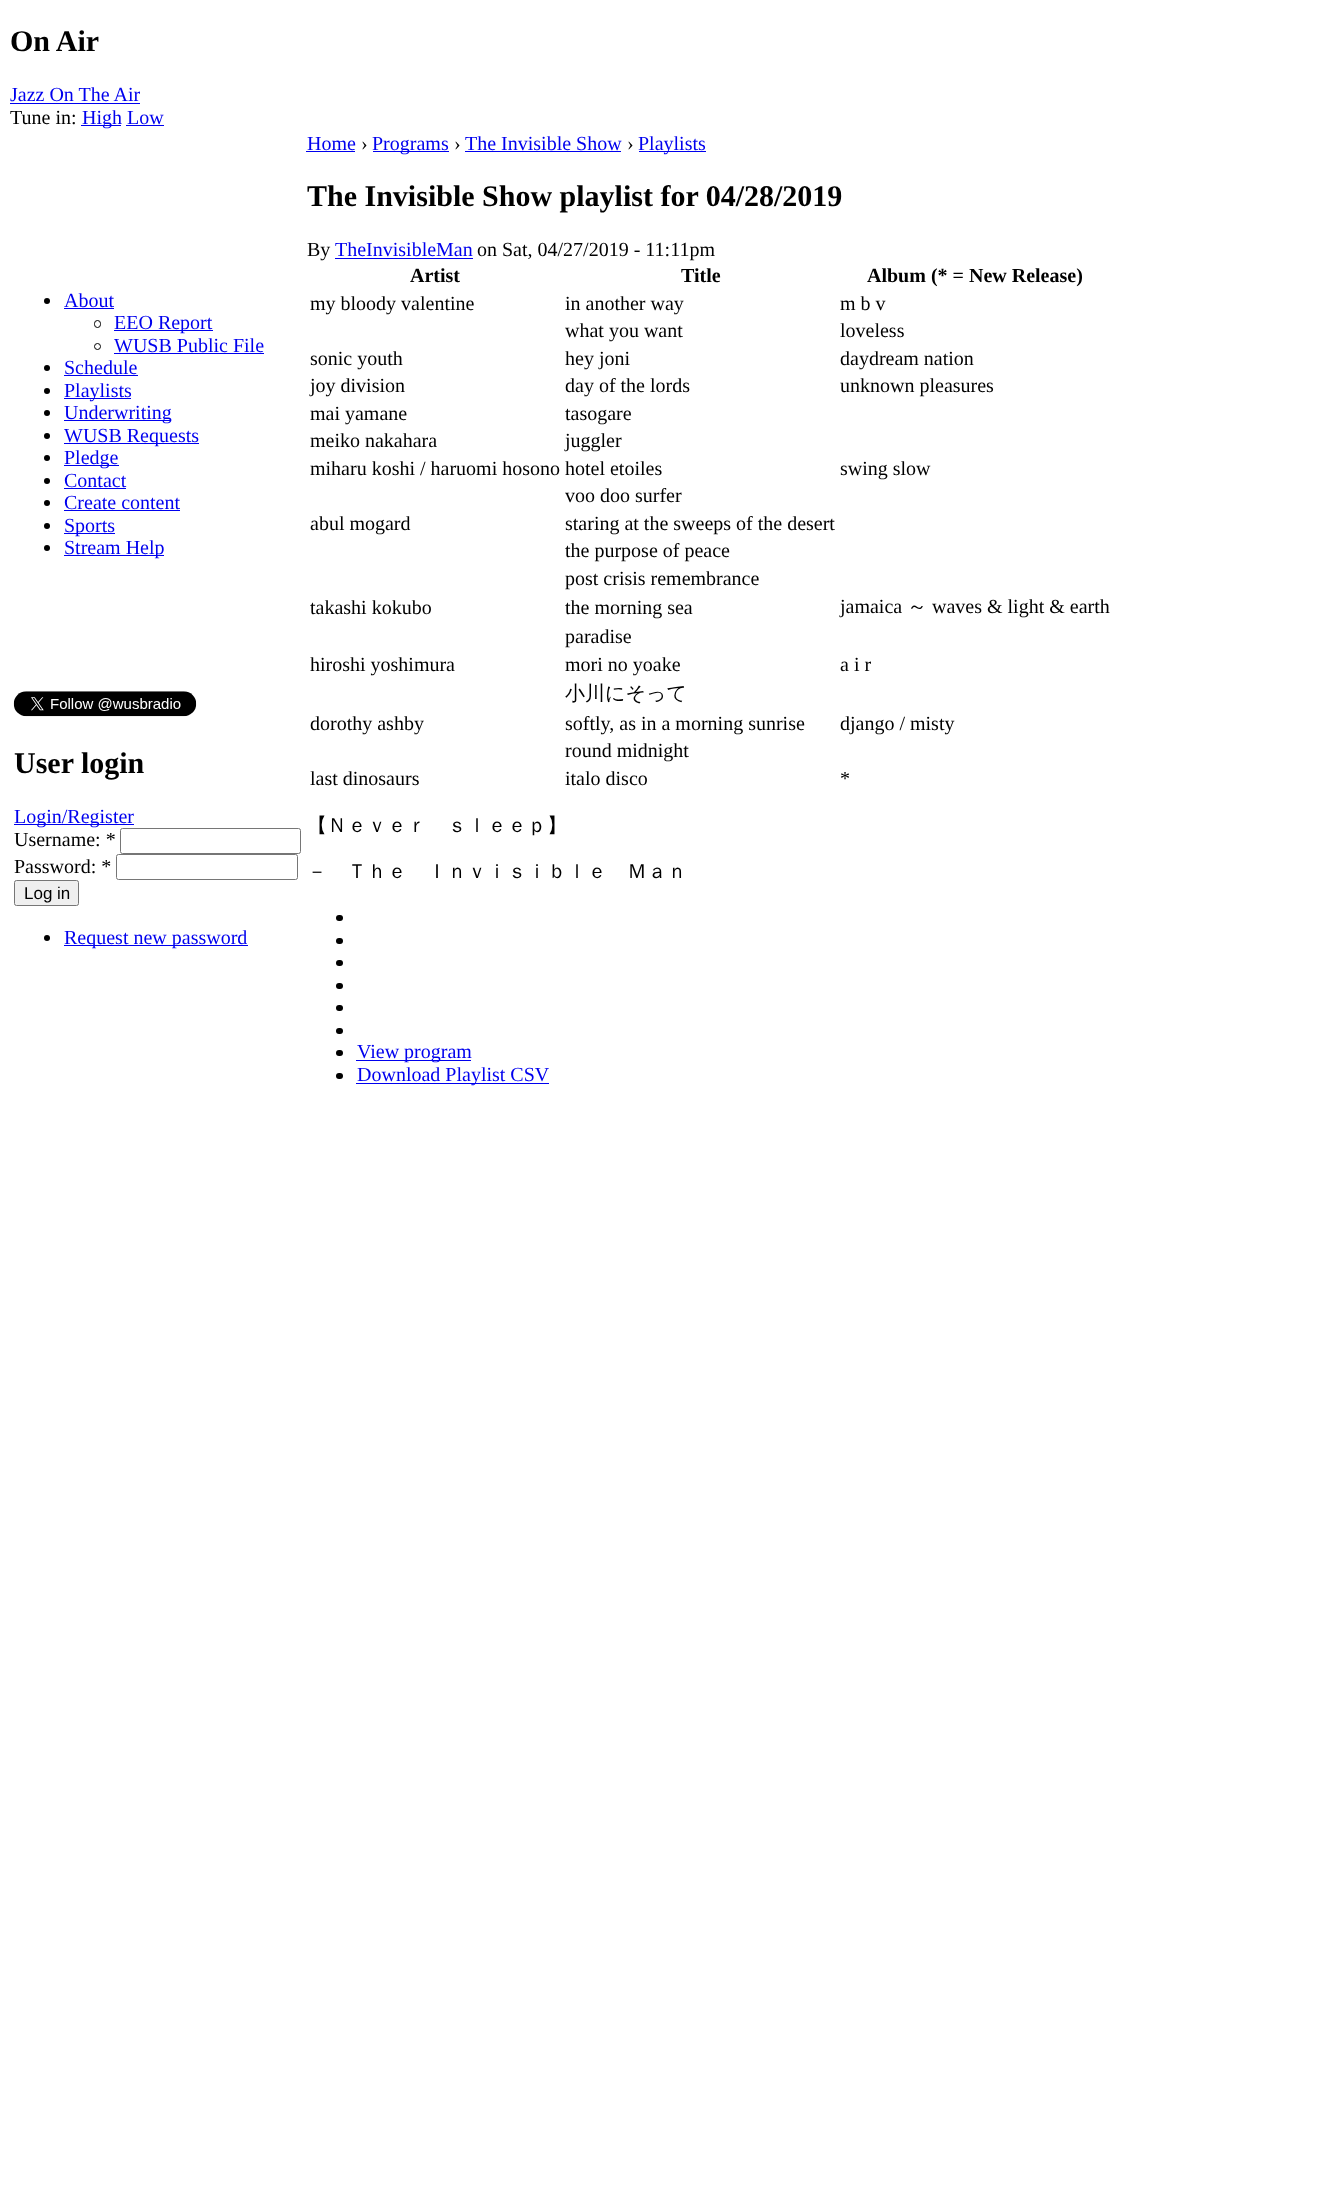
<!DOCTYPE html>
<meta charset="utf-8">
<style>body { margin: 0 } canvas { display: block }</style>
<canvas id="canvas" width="1319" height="2207"></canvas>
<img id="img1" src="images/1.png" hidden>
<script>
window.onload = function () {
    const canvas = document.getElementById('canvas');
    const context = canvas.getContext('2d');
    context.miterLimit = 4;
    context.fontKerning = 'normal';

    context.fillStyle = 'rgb(255, 255, 255)';
    context.fillRect(0, 0, 1319, 2207);
    context.fillStyle = 'rgb(0, 0, 238)';
    context.fillRect(10, 103, 130, 1);
    context.fillRect(81, 125, 40, 1);
    context.fillRect(126, 125, 38, 1);
    context.fillStyle = 'rgb(0, 0, 0)';
    context.beginPath();
    context.arc(47, 301, 3, 0, 2 * Math.PI);
    context.fill();
    context.fillStyle = 'rgb(0, 0, 238)';
    context.fillRect(64, 308, 50, 1);
    context.beginPath();
    context.roundRect(94.5, 320.5, 6, 7, 3);
    context.strokeStyle = 'rgb(0, 0, 0)';
    context.stroke();
    context.fillRect(114, 330, 99, 1);
    context.beginPath();
    context.arc(97.5, 346.5, 3, 0, 2 * Math.PI);
    context.stroke();
    context.fillRect(114, 353, 150, 1);
    context.fillStyle = 'rgb(0, 0, 0)';
    context.beginPath();
    context.arc(47, 368, 3, 0, 2 * Math.PI);
    context.fill();
    context.fillStyle = 'rgb(0, 0, 238)';
    context.fillRect(64, 375, 74, 1);
    context.fillStyle = 'rgb(0, 0, 0)';
    context.beginPath();
    context.arc(47, 391, 3, 0, 2 * Math.PI);
    context.fill();
    context.fillStyle = 'rgb(0, 0, 238)';
    context.fillRect(64, 398, 67, 1);
    context.fillStyle = 'rgb(0, 0, 0)';
    context.beginPath();
    context.arc(47, 413, 3, 0, 2 * Math.PI);
    context.fill();
    context.fillStyle = 'rgb(0, 0, 238)';
    context.fillRect(64, 420, 107, 1);
    context.fillStyle = 'rgb(0, 0, 0)';
    context.beginPath();
    context.arc(47, 436, 3, 0, 2 * Math.PI);
    context.fill();
    context.fillStyle = 'rgb(0, 0, 238)';
    context.fillRect(64, 443, 135, 1);
    context.fillStyle = 'rgb(0, 0, 0)';
    context.beginPath();
    context.arc(47, 458, 3, 0, 2 * Math.PI);
    context.fill();
    context.fillStyle = 'rgb(0, 0, 238)';
    context.fillRect(64, 465, 55, 1);
    context.fillStyle = 'rgb(0, 0, 0)';
    context.beginPath();
    context.arc(47, 481, 3, 0, 2 * Math.PI);
    context.fill();
    context.fillStyle = 'rgb(0, 0, 238)';
    context.fillRect(64, 488, 62, 1);
    context.fillStyle = 'rgb(0, 0, 0)';
    context.beginPath();
    context.arc(47, 503, 3, 0, 2 * Math.PI);
    context.fill();
    context.fillStyle = 'rgb(0, 0, 238)';
    context.fillRect(64, 510, 116, 1);
    context.fillStyle = 'rgb(0, 0, 0)';
    context.beginPath();
    context.arc(47, 526, 3, 0, 2 * Math.PI);
    context.fill();
    context.fillStyle = 'rgb(0, 0, 238)';
    context.fillRect(64, 533, 51, 1);
    context.fillStyle = 'rgb(0, 0, 0)';
    context.beginPath();
    context.arc(47, 548, 3, 0, 2 * Math.PI);
    context.fill();
    context.fillStyle = 'rgb(0, 0, 238)';
    context.fillRect(64, 555, 100, 1);
    context.drawImage(document.getElementById('img1'), 13, 691, 184, 26);
    context.fillRect(14, 824, 120, 1);
    context.beginPath();
    context.roundRect(120.5, 828.5, 180, 25, 2);
    context.strokeStyle = 'rgb(118, 118, 118)';
    context.stroke();
    context.beginPath();
    context.roundRect(116.5, 854.5, 181, 25, 2);
    context.stroke();
    context.fillStyle = 'rgb(239, 239, 239)';
    context.beginPath();
    context.roundRect(14.5, 880.5, 64, 25, 2);
    context.fill();
    context.stroke();
    context.fillStyle = 'rgb(0, 0, 0)';
    context.beginPath();
    context.arc(47, 938, 3, 0, 2 * Math.PI);
    context.fill();
    context.fillStyle = 'rgb(0, 0, 238)';
    context.fillRect(64, 945, 184, 1);
    context.fillRect(306, 151, 49, 1);
    context.fillRect(373, 151, 76, 1);
    context.fillRect(465, 151, 156, 1);
    context.fillRect(639, 151, 67, 1);
    context.fillRect(335, 258, 138, 1);
    context.fillStyle = 'rgb(0, 0, 0)';
    context.beginPath();
    context.roundRect(336, 915, 7, 6, 3);
    context.fill();
    context.beginPath();
    context.roundRect(336, 938, 7, 6, 3);
    context.fill();
    context.beginPath();
    context.roundRect(336, 960, 7, 6, 3);
    context.fill();
    context.beginPath();
    context.roundRect(336, 983, 7, 6, 3);
    context.fill();
    context.beginPath();
    context.roundRect(336, 1005, 7, 6, 3);
    context.fill();
    context.beginPath();
    context.roundRect(336, 1028, 7, 6, 3);
    context.fill();
    context.beginPath();
    context.roundRect(336, 1050, 7, 6, 3);
    context.fill();
    context.fillStyle = 'rgb(0, 0, 238)';
    context.fillRect(356, 1060, 115, 1);
    context.fillStyle = 'rgb(0, 0, 0)';
    context.beginPath();
    context.roundRect(336, 1073, 7, 6, 3);
    context.fill();
    context.fillStyle = 'rgb(0, 0, 238)';
    context.fillRect(356, 1083, 193, 1);
    context.font = 'bold 30px Liberation Serif';
    context.fillStyle = 'rgb(0, 0, 0)';
    context.fillText('On Air', 10, 51);
    context.font = '20px Liberation Serif';
    context.fillStyle = 'rgb(0, 0, 238)';
    context.fillText('Jazz On The Air', 10, 101);
    context.fillStyle = 'rgb(0, 0, 0)';
    context.fillText('Tune in:', 10, 124);
    context.fillStyle = 'rgb(0, 0, 238)';
    context.fillText('High Low', 82, 124);
    context.fillText('About', 64, 307);
    context.fillText('EEO Report', 114, 329);
    context.fillText('WUSB Public File', 114, 352);
    context.fillText('Schedule', 64, 374);
    context.fillText('Playlists', 64, 397);
    context.fillText('Underwriting', 64, 419);
    context.fillText('WUSB Requests', 64, 442);
    context.fillText('Pledge', 64, 464);
    context.fillText('Contact', 64, 487);
    context.fillText('Create content', 64, 509);
    context.fillText('Sports', 64, 532);
    context.fillText('Stream Help', 64, 554);
    context.font = 'bold 30px Liberation Serif';
    context.fillStyle = 'rgb(0, 0, 0)';
    context.fillText('User login', 14, 773);
    context.font = '20px Liberation Serif';
    context.fillStyle = 'rgb(0, 0, 238)';
    context.fillText('Login/Register', 14, 823);
    context.fillStyle = 'rgb(0, 0, 0)';
    context.fillText('Username: *', 14, 846);
    context.fillText('Password: *', 14, 873);
    context.font = '17px Liberation Sans';
    context.fillText('Log in', 24, 899);
    context.font = '20px Liberation Serif';
    context.fillStyle = 'rgb(0, 0, 238)';
    context.fillText('Request new password', 64, 944);
    context.fillText('Home', 307, 150);
    context.fillStyle = 'rgb(0, 0, 0)';
    context.fillText('›', 361, 150);
    context.fillStyle = 'rgb(0, 0, 238)';
    context.fillText('Programs', 372, 150);
    context.fillStyle = 'rgb(0, 0, 0)';
    context.fillText('›', 454, 150);
    context.fillStyle = 'rgb(0, 0, 238)';
    context.fillText('The Invisible Show', 465, 150);
    context.fillStyle = 'rgb(0, 0, 0)';
    context.fillText('›', 627, 150);
    context.fillStyle = 'rgb(0, 0, 238)';
    context.fillText('Playlists', 638, 150);
    context.font = 'bold 30px Liberation Serif';
    context.fillStyle = 'rgb(0, 0, 0)';
    context.fillText('The Invisible Show playlist for 04/28/2019', 307, 206);
    context.font = '20px Liberation Serif';
    context.fillText('By', 307, 256);
    context.fillStyle = 'rgb(0, 0, 238)';
    context.fillText('TheInvisibleMan', 335, 256);
    context.fillStyle = 'rgb(0, 0, 0)';
    context.fillText('on Sat, 04/27/2019 - 11:11pm', 477, 256);
    context.font = 'bold 20px Liberation Serif';
    context.fillText('Artist', 410, 282);
    context.fillText('Title', 681, 282);
    context.fillText('Album (* = New Release)', 867, 282);
    context.font = '20px Liberation Serif';
    context.fillText('my bloody valentine', 310, 310);
    context.fillText('in another way', 565, 310);
    context.fillText('m b v', 840, 310);
    context.fillText('what you want', 565, 337);
    context.fillText('loveless', 840, 337);
    context.fillText('sonic youth', 310, 365);
    context.fillText('hey joni', 565, 365);
    context.fillText('daydream nation', 840, 365);
    context.fillText('joy division', 310, 392);
    context.fillText('day of the lords', 565, 392);
    context.fillText('unknown pleasures', 840, 392);
    context.fillText('mai yamane', 310, 420);
    context.fillText('tasogare', 565, 420);
    context.fillText('meiko nakahara', 310, 447);
    context.fillText('juggler', 565, 447);
    context.fillText('miharu koshi / haruomi hosono hotel etoiles', 310, 475);
    context.fillText('swing slow', 840, 475);
    context.fillText('voo doo surfer', 565, 502);
    context.fillText('abul mogard', 310, 530);
    context.fillText('staring at the sweeps of the desert', 565, 530);
    context.fillText('the purpose of peace', 565, 557);
    context.fillText('post crisis remembrance', 565, 585);
    context.fillText('takashi kokubo', 310, 614);
    context.fillText('the morning sea', 565, 614);
    context.fillText('jamaica', 840, 613);
    context.font = '500 20px WenQuanYi Zen Hei';
    context.fillText('～', 907, 613);
    context.font = '20px Liberation Serif';
    context.fillText('waves & light & earth', 932, 613);
    context.fillText('paradise', 565, 643);
    context.fillText('hiroshi yoshimura', 310, 671);
    context.fillText('mori no yoake', 565, 671);
    context.fillText('a i r', 840, 671);
    context.font = '500 20px WenQuanYi Zen Hei';
    context.fillText('小川にそって', 565, 700);
    context.font = '20px Liberation Serif';
    context.fillText('dorothy ashby', 310, 730);
    context.fillText('softly, as in a morning sunrise', 565, 730);
    context.fillText('django / misty', 840, 730);
    context.fillText('round midnight', 565, 757);
    context.fillText('last dinosaurs', 310, 785);
    context.fillText('italo disco', 565, 785);
    context.fillText('*', 840, 785);
    context.font = '500 20px WenQuanYi Zen Hei';
    context.fillText('【Ｎｅｖｅｒ　ｓｌｅｅｐ】', 307, 832);
    context.fillText('－　Ｔｈｅ　Ｉｎｖｉｓｉｂｌｅ　Ｍａｎ', 307, 878);
    context.font = '20px Liberation Serif';
    context.fillStyle = 'rgb(0, 0, 238)';
    context.fillText('View program', 357, 1058);
    context.fillText('Download Playlist CSV', 357, 1081);
};
</script>
